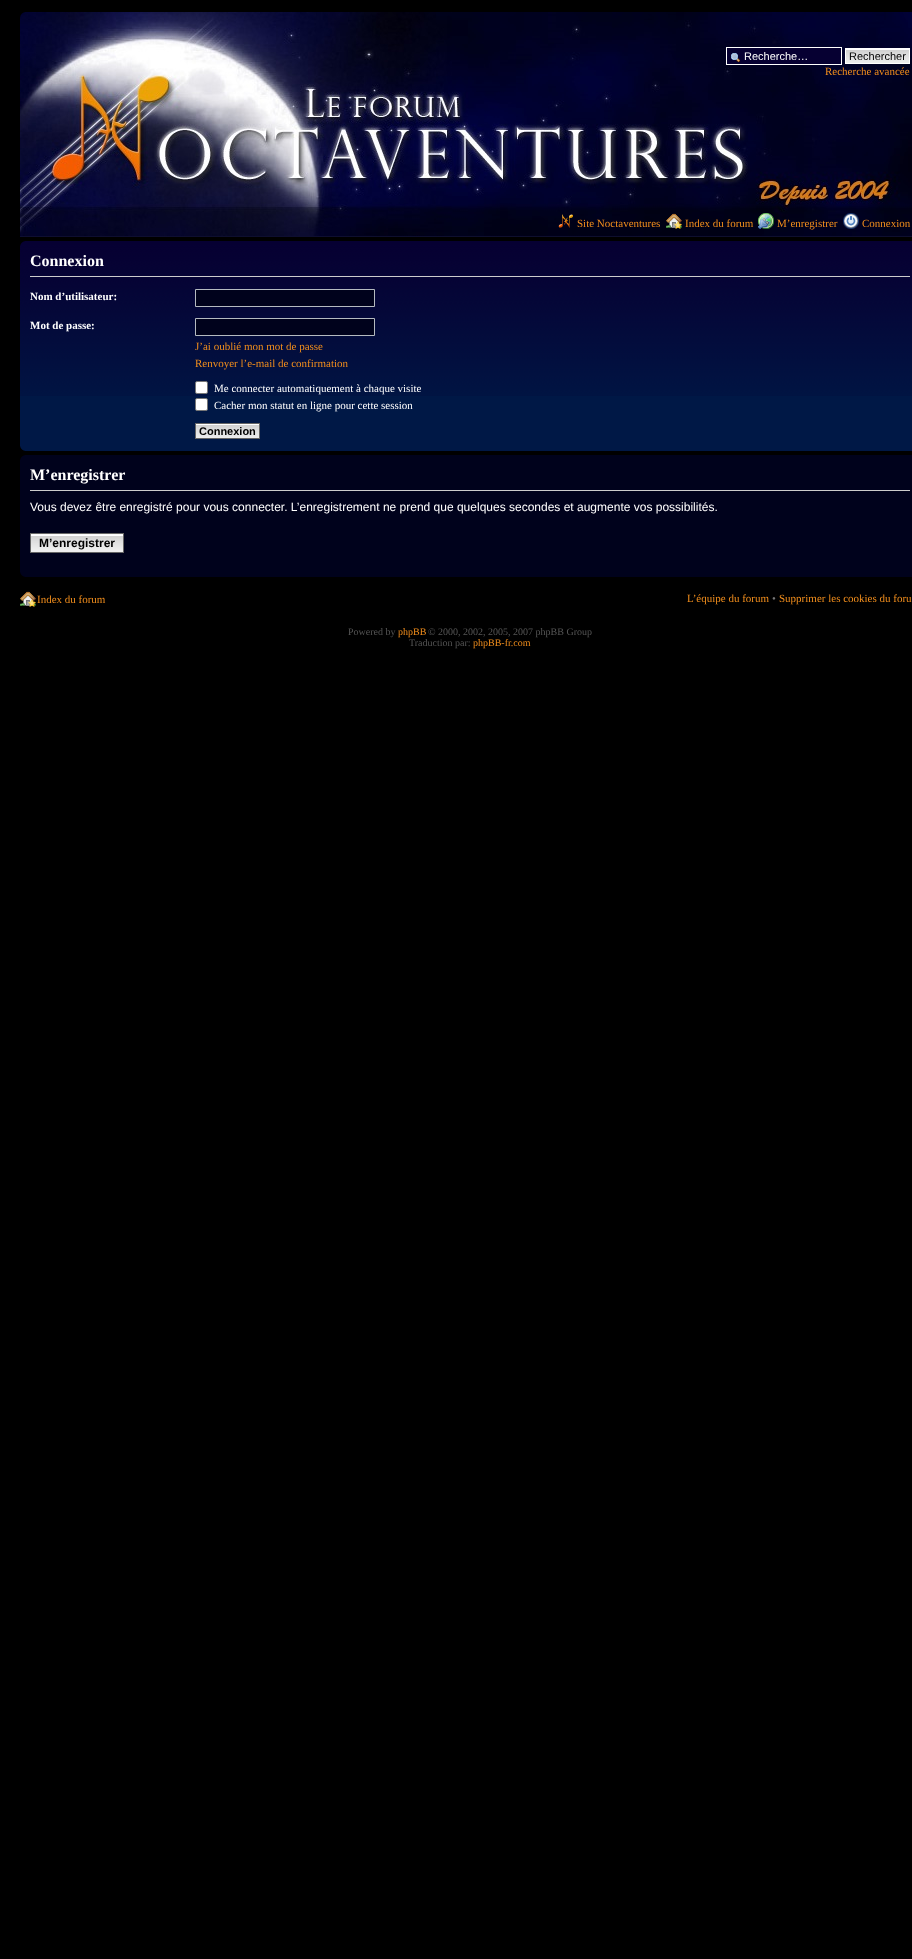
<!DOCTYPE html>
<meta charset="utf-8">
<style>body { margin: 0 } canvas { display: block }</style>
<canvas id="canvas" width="912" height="1959"></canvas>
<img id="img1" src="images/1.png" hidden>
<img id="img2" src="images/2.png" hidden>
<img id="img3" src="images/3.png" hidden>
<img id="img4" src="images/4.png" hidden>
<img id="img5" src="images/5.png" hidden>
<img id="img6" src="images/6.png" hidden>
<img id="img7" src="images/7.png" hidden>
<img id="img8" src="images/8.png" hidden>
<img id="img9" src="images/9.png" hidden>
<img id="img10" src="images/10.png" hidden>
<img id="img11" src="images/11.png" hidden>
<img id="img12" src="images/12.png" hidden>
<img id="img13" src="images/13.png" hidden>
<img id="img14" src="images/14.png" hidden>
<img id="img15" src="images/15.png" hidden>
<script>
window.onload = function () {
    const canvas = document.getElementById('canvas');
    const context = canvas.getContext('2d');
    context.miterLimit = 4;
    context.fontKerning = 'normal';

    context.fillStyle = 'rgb(0, 0, 0)';
    context.fillRect(0, 0, 912, 1959);
    context.drawImage(document.getElementById('img1'), 20, 12, 892, 225);
    context.drawImage(document.getElementById('img2'), 20, 12, 5, 5);
    context.fillStyle = 'rgb(6, 0, 50)';
    context.fillRect(727, 48, 114, 16);
    context.drawImage(document.getElementById('img3'), 731, 53, 9, 9);
    context.strokeStyle = 'rgb(255, 255, 255)';
    context.strokeRect(726.5, 47.5, 115, 17);
    context.drawImage(document.getElementById('img4'), 846, 49, 63, 14);
    context.strokeRect(845.5, 48.5, 64, 15);
    context.drawImage(document.getElementById('img5'), 558, 214, 15, 14);
    context.drawImage(document.getElementById('img6'), 666, 213, 16, 16);
    context.drawImage(document.getElementById('img7'), 758, 213, 16, 16);
    context.drawImage(document.getElementById('img8'), 843, 213, 16, 16);
    context.fillStyle = 'rgb(0, 24, 70)';
    context.fillRect(20, 396, 892, 55);
    context.drawImage(document.getElementById('img9'), 20, 241, 892, 155);
    context.drawImage(document.getElementById('img10'), 20, 241, 5, 5);
    context.fillStyle = 'rgb(204, 204, 204)';
    context.fillRect(30, 276, 880, 1);
    context.fillStyle = 'rgb(0, 2, 28)';
    context.beginPath();
    context.rect(195.5, 289.5, 179, 17);
    context.fill();
    context.strokeStyle = 'rgb(180, 186, 192)';
    context.stroke();
    context.beginPath();
    context.rect(195.5, 318.5, 179, 17);
    context.fill();
    context.stroke();
    context.fillStyle = 'rgb(255, 255, 255)';
    context.beginPath();
    context.roundRect(195.5, 381.5, 12, 12, 1.5);
    context.fill();
    context.strokeStyle = 'rgb(118, 118, 118)';
    context.stroke();
    context.beginPath();
    context.roundRect(195.5, 398.5, 12, 12, 1.5);
    context.fill();
    context.stroke();
    context.drawImage(document.getElementById('img4'), 196, 424, 63, 14);
    context.strokeStyle = 'rgb(102, 102, 102)';
    context.strokeRect(195.5, 423.5, 64, 15);
    context.drawImage(document.getElementById('img11'), 20, 446, 5, 5);
    context.fillStyle = 'rgb(0, 2, 28)';
    context.fillRect(20, 455, 892, 122);
    context.drawImage(document.getElementById('img12'), 20, 455, 5, 5);
    context.fillStyle = 'rgb(204, 204, 204)';
    context.fillRect(30, 490, 880, 1);
    context.drawImage(document.getElementById('img13'), 31, 535, 92, 17);
    context.fillStyle = 'rgb(250, 250, 250)';
    context.fillRect(31, 534, 92, 1);
    context.strokeRect(30.5, 533.5, 93, 19);
    context.drawImage(document.getElementById('img14'), 20, 572, 5, 5);
    context.drawImage(document.getElementById('img15'), 20, 591, 16, 16);
    context.font = '11px Liberation Sans';
    context.fillStyle = 'rgb(255, 255, 255)';
    context.fillText('Recherche…', 744, 60);
    context.fillStyle = 'rgb(0, 0, 0)';
    context.fillText('Rechercher', 849, 60);
    context.font = '11px Liberation Serif';
    context.fillStyle = 'rgb(242, 142, 28)';
    context.fillText('Recherche avancée', 825, 75);
    context.fillText('Site Noctaventures', 577, 227);
    context.fillText('Index du forum', 685, 227);
    context.fillText('M’enregistrer', 777, 227);
    context.fillText('Connexion', 862, 227);
    context.font = 'bold 16px Liberation Serif';
    context.fillStyle = 'rgb(255, 255, 255)';
    context.fillText('Connexion', 30, 266);
    context.font = 'bold 11px Liberation Serif';
    context.fillText('Nom d’utilisateur:', 30, 300);
    context.fillText('Mot de passe:', 30, 329);
    context.font = '11px Liberation Serif';
    context.fillStyle = 'rgb(242, 142, 28)';
    context.fillText('J’ai oublié mon mot de passe', 195, 350);
    context.fillText('Renvoyer l’e-mail de confirmation', 195, 367);
    context.fillStyle = 'rgb(255, 255, 255)';
    context.fillText('Me connecter automatiquement à chaque visite', 214, 392);
    context.fillText('Cacher mon statut en ligne pour cette session', 214, 409);
    context.font = 'bold 11px Liberation Sans';
    context.fillStyle = 'rgb(0, 0, 0)';
    context.fillText('Connexion', 199, 435);
    context.font = 'bold 16px Liberation Serif';
    context.fillStyle = 'rgb(255, 255, 255)';
    context.fillText('M’enregistrer', 30, 480);
    context.font = '12px Liberation Sans';
    context.fillText('Vous devez être enregistré pour vous connecter. L’enregistrement ne prend que quelques secondes et augmente vos possibilités.', 30, 511);
    context.font = 'bold 12px Liberation Sans';
    context.fillStyle = 'rgb(0, 0, 0)';
    context.fillText('M’enregistrer', 39, 547);
    context.font = '11px Liberation Serif';
    context.fillStyle = 'rgb(242, 142, 28)';
    context.fillText('Index du forum', 37, 603);
    context.fillText('L’équipe du forum', 687, 602);
    context.fillStyle = 'rgb(119, 119, 119)';
    context.fillText('•', 772, 602);
    context.fillStyle = 'rgb(242, 142, 28)';
    context.fillText('Supprimer les cookies du foru', 779, 602);
    context.font = '10px Liberation Serif';
    context.fillStyle = 'rgb(85, 85, 85)';
    context.fillText('Powered by', 348, 635);
    context.fillStyle = 'rgb(242, 142, 28)';
    context.fillText('phpBB', 398, 635);
    context.fillStyle = 'rgb(85, 85, 85)';
    context.fillText('© 2000, 2002, 2005, 2007 phpBB Group', 428, 635);
    context.fillText('Traduction par:', 409, 646);
    context.fillStyle = 'rgb(242, 142, 28)';
    context.fillText('phpBB-fr.com', 473, 646);
};
</script>
